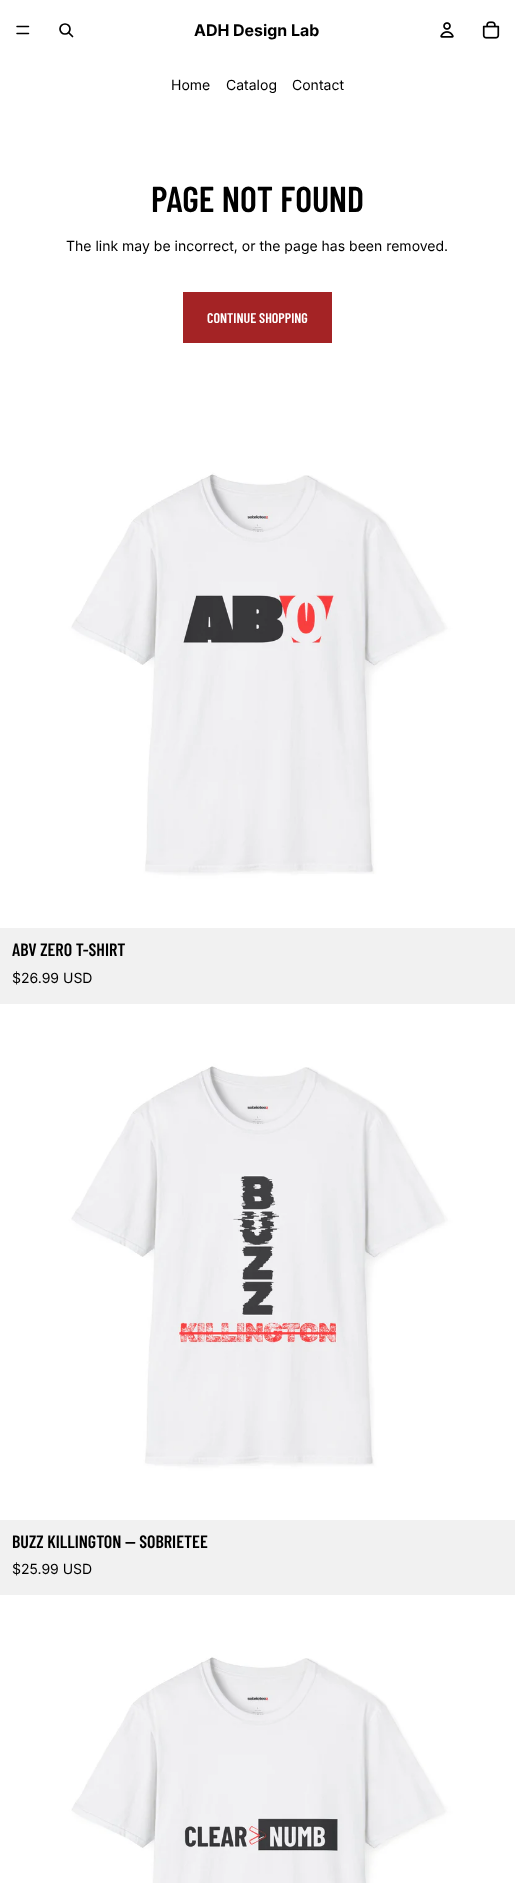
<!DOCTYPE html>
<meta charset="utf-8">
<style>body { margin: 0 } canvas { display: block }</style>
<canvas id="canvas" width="515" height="1883"></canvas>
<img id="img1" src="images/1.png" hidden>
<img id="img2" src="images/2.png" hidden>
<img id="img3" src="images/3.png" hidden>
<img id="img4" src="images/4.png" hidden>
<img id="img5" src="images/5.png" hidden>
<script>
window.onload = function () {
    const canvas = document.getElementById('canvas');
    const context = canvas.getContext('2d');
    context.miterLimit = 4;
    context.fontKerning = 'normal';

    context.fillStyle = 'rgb(255, 255, 255)';
    context.fillRect(0, 0, 515, 1883);
    context.beginPath();
    context.moveTo(17, 26.5);
    context.lineTo(28.5, 26.5);
    context.moveTo(17, 33.5);
    context.lineTo(28.5, 33.5);
    context.strokeStyle = 'rgb(0, 0, 0)';
    context.lineWidth = 1.5;
    context.lineCap = 'round';
    context.stroke();
    context.beginPath();
    context.arc(65, 29, 5, 0, 2 * Math.PI);
    context.lineWidth = 1.7;
    context.stroke();
    context.beginPath();
    context.moveTo(69, 33);
    context.lineTo(72.5, 36.5);
    context.lineJoin = 'round';
    context.stroke();
    context.drawImage(document.getElementById('img1'), 440, 22, 14, 16);
    context.drawImage(document.getElementById('img2'), 482, 21, 18, 18);
    context.fillStyle = 'rgb(164, 35, 37)';
    context.fillRect(183, 292, 149, 51);
    context.fillStyle = 'rgb(241, 241, 241)';
    context.fillRect(0, 928, 515, 76);
    context.drawImage(document.getElementById('img3'), 0, 413, 515, 515);
    context.fillRect(0, 1520, 515, 75);
    context.drawImage(document.getElementById('img4'), 0, 1005, 515, 515);
    context.drawImage(document.getElementById('img5'), 0, 1596, 515, 287);
    context.font = 'bold 16px Inter';
    context.fillStyle = 'rgb(0, 0, 0)';
    context.fillText('ADH Design Lab', 194, 36);
    context.font = '14px Inter';
    context.fillText('Home', 171, 90);
    context.fillText('Catalog', 226, 90);
    context.fillText('Contact', 292, 90);
    context.font = '600 36px Barlow Condensed';
    context.fillText('PAGE NOT FOUND', 151, 212);
    context.font = '14px Inter';
    context.fillText('The link may be incorrect, or the page has been removed.', 66, 251);
    context.font = '600 14px Barlow Condensed';
    context.fillStyle = 'rgb(255, 255, 255)';
    context.fillText('CONTINUE SHOPPING', 207, 323);
    context.font = '600 18px Barlow Condensed';
    context.fillStyle = 'rgb(0, 0, 0)';
    context.fillText('ABV ZERO T-SHIRT', 12, 956);
    context.font = '14px Inter';
    context.fillText('$26.99 USD', 12, 983);
    context.font = '600 18px Barlow Condensed';
    context.fillText('BUZZ KILLINGTON — SOBRIETEE', 12, 1548);
    context.font = '14px Inter';
    context.fillText('$25.99 USD', 12, 1574);
};
</script>
